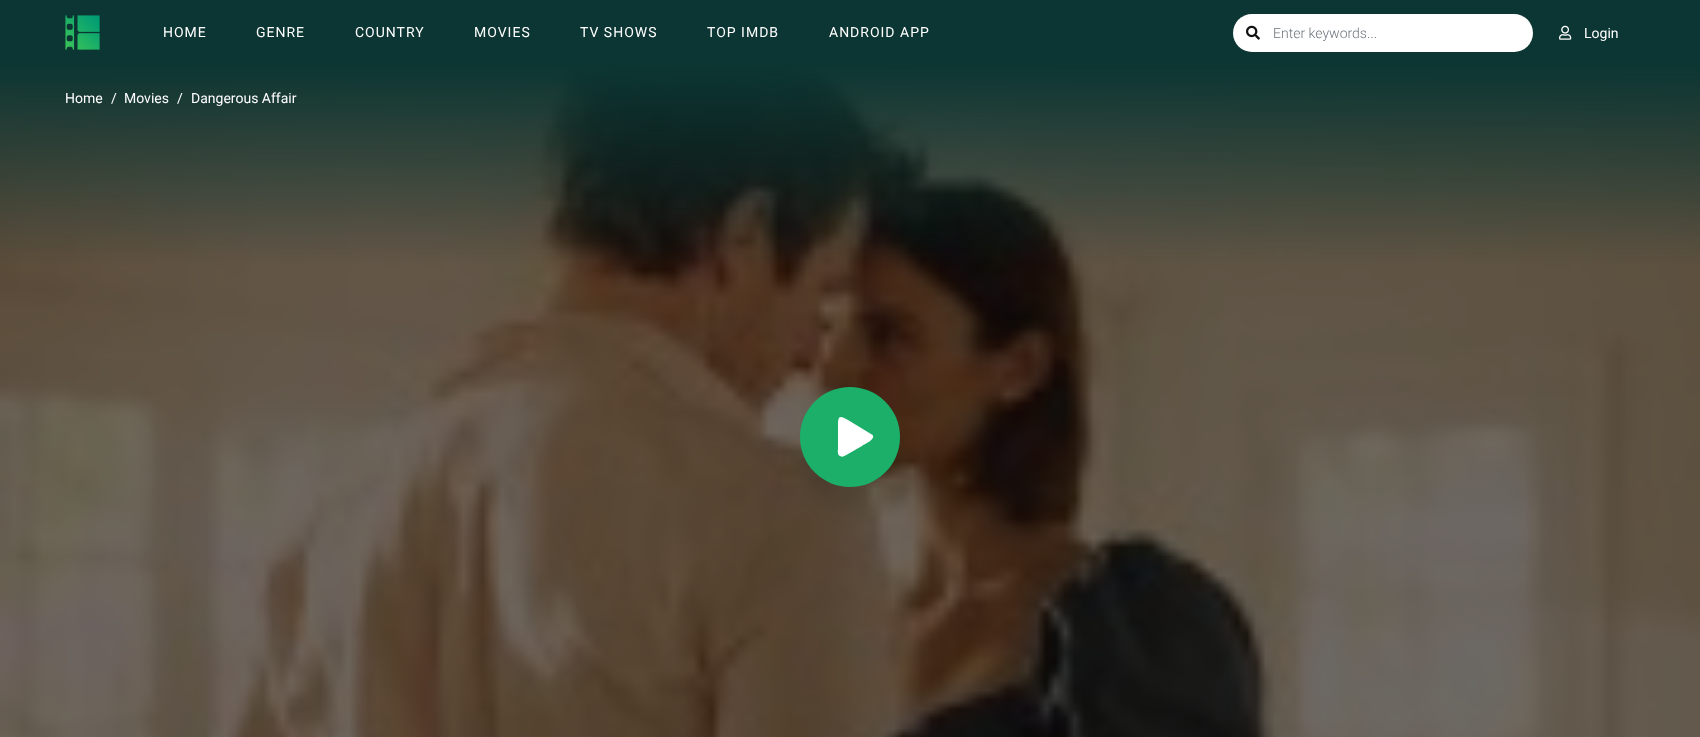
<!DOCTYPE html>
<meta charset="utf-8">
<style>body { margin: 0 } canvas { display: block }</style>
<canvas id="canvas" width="1700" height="737"></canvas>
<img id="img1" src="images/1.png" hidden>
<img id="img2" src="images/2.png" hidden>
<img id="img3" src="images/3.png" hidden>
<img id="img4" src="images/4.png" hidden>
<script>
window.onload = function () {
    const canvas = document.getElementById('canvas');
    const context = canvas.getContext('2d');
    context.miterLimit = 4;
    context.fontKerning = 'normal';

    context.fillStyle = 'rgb(255, 255, 255)';
    context.fillRect(0, 0, 1700, 737);
    context.fillStyle = 'rgb(12, 54, 51)';
    context.fillRect(0, 0, 1700, 65);
    context.drawImage(document.getElementById('img1'), 65, 15, 35, 35);
    context.fillStyle = 'rgb(255, 255, 255)';
    context.beginPath();
    context.roundRect(1233, 14, 300, 38, 19);
    context.fill();
    context.drawImage(document.getElementById('img2'), 1246, 25, 14, 15);
    context.drawImage(document.getElementById('img3'), 1559, 25, 13, 15);
    context.drawImage(document.getElementById('img4'), 0, 65, 1700, 672);
    context.fillStyle = 'rgba(0, 0, 0, 0.1)';
    context.filter = 'blur(10px)';
    context.beginPath();
    context.roundRect(800, 407, 100, 100, 50);
    context.fill();
    context.filter = 'none';
    context.fillStyle = 'rgb(27, 175, 105)';
    context.beginPath();
    context.arc(850, 437, 50, 0, 2 * Math.PI);
    context.fill();
    context.fillStyle = 'rgb(255, 255, 255)';
    context.beginPath();
    context.moveTo(871, 434);
    context.bezierCurveTo(879, 438, 863, 445, 862, 446);
    context.lineTo(848, 454);
    context.bezierCurveTo(846, 455, 843, 458, 840, 456);
    context.bezierCurveTo(837, 455, 838, 450, 838, 448);
    context.lineTo(838, 426);
    context.bezierCurveTo(838, 416, 839, 415, 848, 420);
    context.closePath();
    context.fill();
    context.letterSpacing = '1px';
    context.font = '14px Roboto';
    context.fillText('HOME', 163, 37);
    context.fillText('GENRE', 256, 37);
    context.fillText('COUNTRY', 355, 37);
    context.fillText('MOVIES', 474, 37);
    context.fillText('TV SHOWS', 580, 37);
    context.fillText('TOP IMDB', 707, 37);
    context.fillText('ANDROID APP', 829, 37);
    context.letterSpacing = '0px';
    context.font = '300 14px Roboto';
    context.fillStyle = 'rgb(108, 117, 125)';
    context.fillText('Enter keywords...', 1273, 38);
    context.font = '14px Roboto';
    context.fillStyle = 'rgb(255, 255, 255)';
    context.fillText('Login', 1584, 38);
    context.fillText('Home', 65, 103);
    context.fillText('/', 111, 103);
    context.fillText('Movies', 124, 103);
    context.fillText('/', 177, 103);
    context.fillText('Dangerous Affair', 191, 103);
};
</script>
